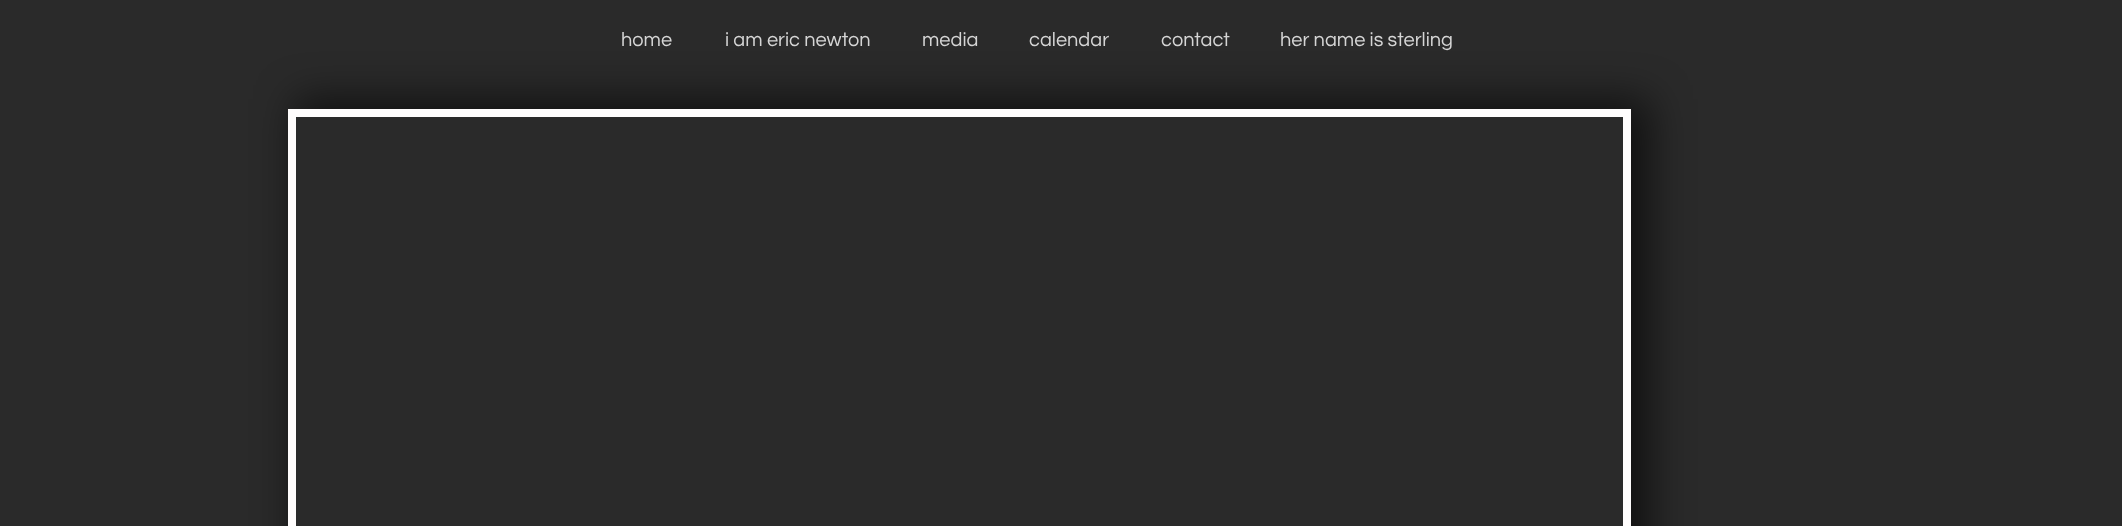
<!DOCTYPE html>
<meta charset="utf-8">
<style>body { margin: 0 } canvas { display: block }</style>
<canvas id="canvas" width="2122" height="526"></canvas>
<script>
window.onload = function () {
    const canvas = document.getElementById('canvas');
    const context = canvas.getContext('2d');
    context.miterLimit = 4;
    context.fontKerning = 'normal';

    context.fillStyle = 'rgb(42, 42, 42)';
    context.fillRect(0, 0, 2122, 526);
    context.save();
    context.beginPath();
    context.moveTo(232, 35);
    context.lineTo(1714, 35);
    context.lineTo(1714, 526);
    context.lineTo(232, 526);
    context.closePath();
    context.moveTo(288, 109);
    context.lineTo(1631, 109);
    context.lineTo(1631, 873);
    context.lineTo(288, 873);
    context.closePath();
    context.clip('evenodd');
    context.fillStyle = 'rgba(0, 0, 0, 0.6)';
    context.filter = 'blur(21px)';
    context.beginPath();
    context.rect(296, 99, 1354, 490);
    context.fill();
    context.filter = 'none';
    context.restore();
    context.strokeStyle = 'rgb(255, 253, 253)';
    context.lineWidth = 8;
    context.strokeRect(292, 113, 1335, 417);
    context.font = '20px Questrial';
    context.fillStyle = 'rgb(213, 213, 213)';
    context.fillText('home', 621, 46);
    context.fillText('i am eric newton', 725, 46);
    context.fillText('media', 922, 46);
    context.fillText('calendar', 1029, 46);
    context.fillText('contact', 1161, 46);
    context.fillText('her name is sterling', 1280, 46);
};
</script>
